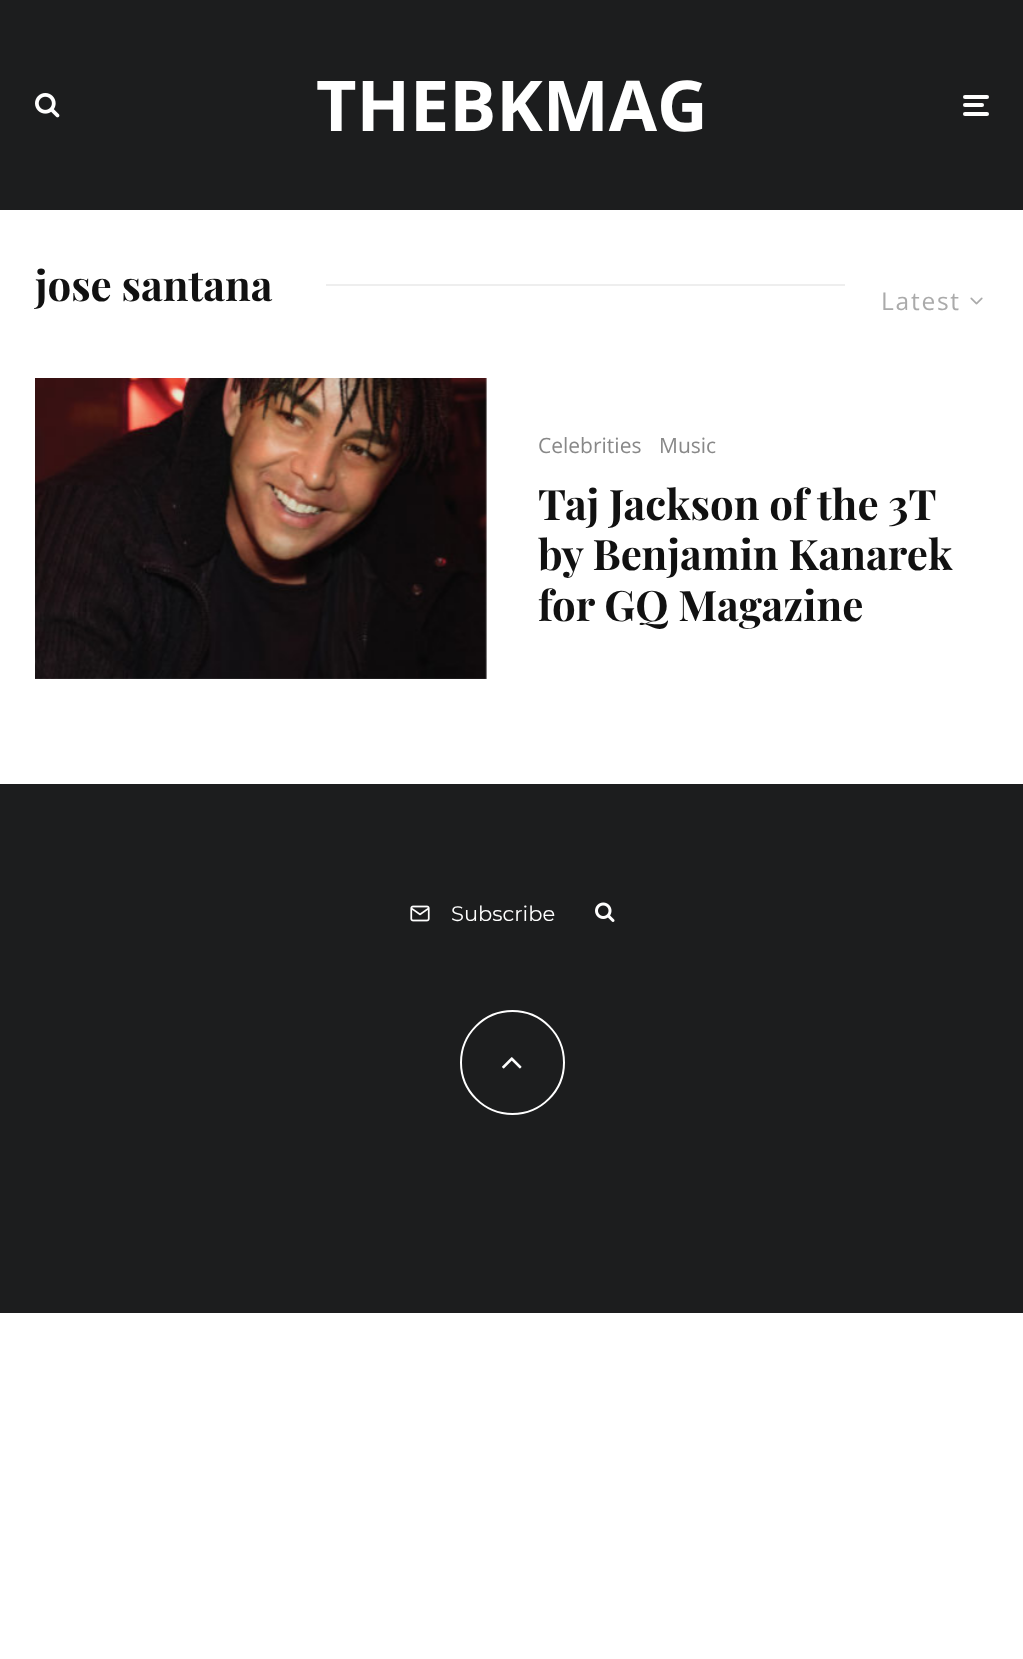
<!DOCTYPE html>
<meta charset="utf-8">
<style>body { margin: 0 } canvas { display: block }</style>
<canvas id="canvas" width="1023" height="1659"></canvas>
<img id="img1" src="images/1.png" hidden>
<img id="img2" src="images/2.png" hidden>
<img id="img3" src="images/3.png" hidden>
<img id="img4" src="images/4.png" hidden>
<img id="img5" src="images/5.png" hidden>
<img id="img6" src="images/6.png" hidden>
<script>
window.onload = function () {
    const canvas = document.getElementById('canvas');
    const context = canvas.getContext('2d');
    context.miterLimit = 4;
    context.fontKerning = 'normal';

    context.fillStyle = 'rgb(255, 255, 255)';
    context.fillRect(0, 0, 1023, 1659);
    context.fillStyle = 'rgb(28, 29, 30)';
    context.fillRect(0, 0, 1023, 210);
    context.drawImage(document.getElementById('img1'), 35, 93, 25, 25);
    context.fillStyle = 'rgb(255, 255, 255)';
    context.beginPath();
    context.roundRect(963, 103, 21, 4, 2);
    context.fill();
    context.beginPath();
    context.roundRect(963, 95, 26, 4, 2);
    context.fill();
    context.beginPath();
    context.roundRect(963, 112, 26, 4, 2);
    context.fill();
    context.fillStyle = 'rgb(238, 238, 238)';
    context.fillRect(326, 284, 519, 2);
    context.drawImage(document.getElementById('img2'), 970, 297, 13, 8);
    context.fillRect(35, 378, 452, 301);
    context.drawImage(document.getElementById('img3'), 35, 378, 452, 301);
    context.fillStyle = 'rgb(28, 29, 30)';
    context.fillRect(0, 784, 1023, 529);
    context.drawImage(document.getElementById('img4'), 410, 905, 20, 17);
    context.drawImage(document.getElementById('img5'), 595, 902, 20, 20);
    context.beginPath();
    context.arc(512.5, 1062.5, 51.5, 0, 2 * Math.PI);
    context.strokeStyle = 'rgb(255, 255, 255)';
    context.lineWidth = 2;
    context.stroke();
    context.drawImage(document.getElementById('img6'), 502, 1057, 20, 12);
    context.font = 'bold 70px Open Sans';
    context.fillStyle = 'rgb(255, 255, 255)';
    context.fillText('THEBKMAG', 316, 131);
    context.font = 'bold 42px Playfair Display';
    context.fillStyle = 'rgb(17, 17, 17)';
    context.fillText('jose santana', 35, 301);
    context.letterSpacing = '1.75px';
    context.font = '24.5px Open Sans';
    context.fillStyle = 'rgb(170, 170, 170)';
    context.fillText('Latest', 881, 310);
    context.letterSpacing = '0px';
    context.font = '21px Open Sans';
    context.fillStyle = 'rgb(136, 136, 136)';
    context.fillText('Celebrities', 538, 453);
    context.fillText('Music', 659, 453);
    context.font = 'bold 42px Playfair Display';
    context.fillStyle = 'rgb(17, 17, 17)';
    context.fillText('Taj Jackson of the 3T', 538, 520);
    context.fillText('by Benjamin Kanarek', 538, 570);
    context.fillText('for GQ Magazine', 538, 621);
    context.font = '21px Montserrat';
    context.fillStyle = 'rgb(255, 255, 255)';
    context.fillText('Subscribe', 451, 921);
};
</script>
